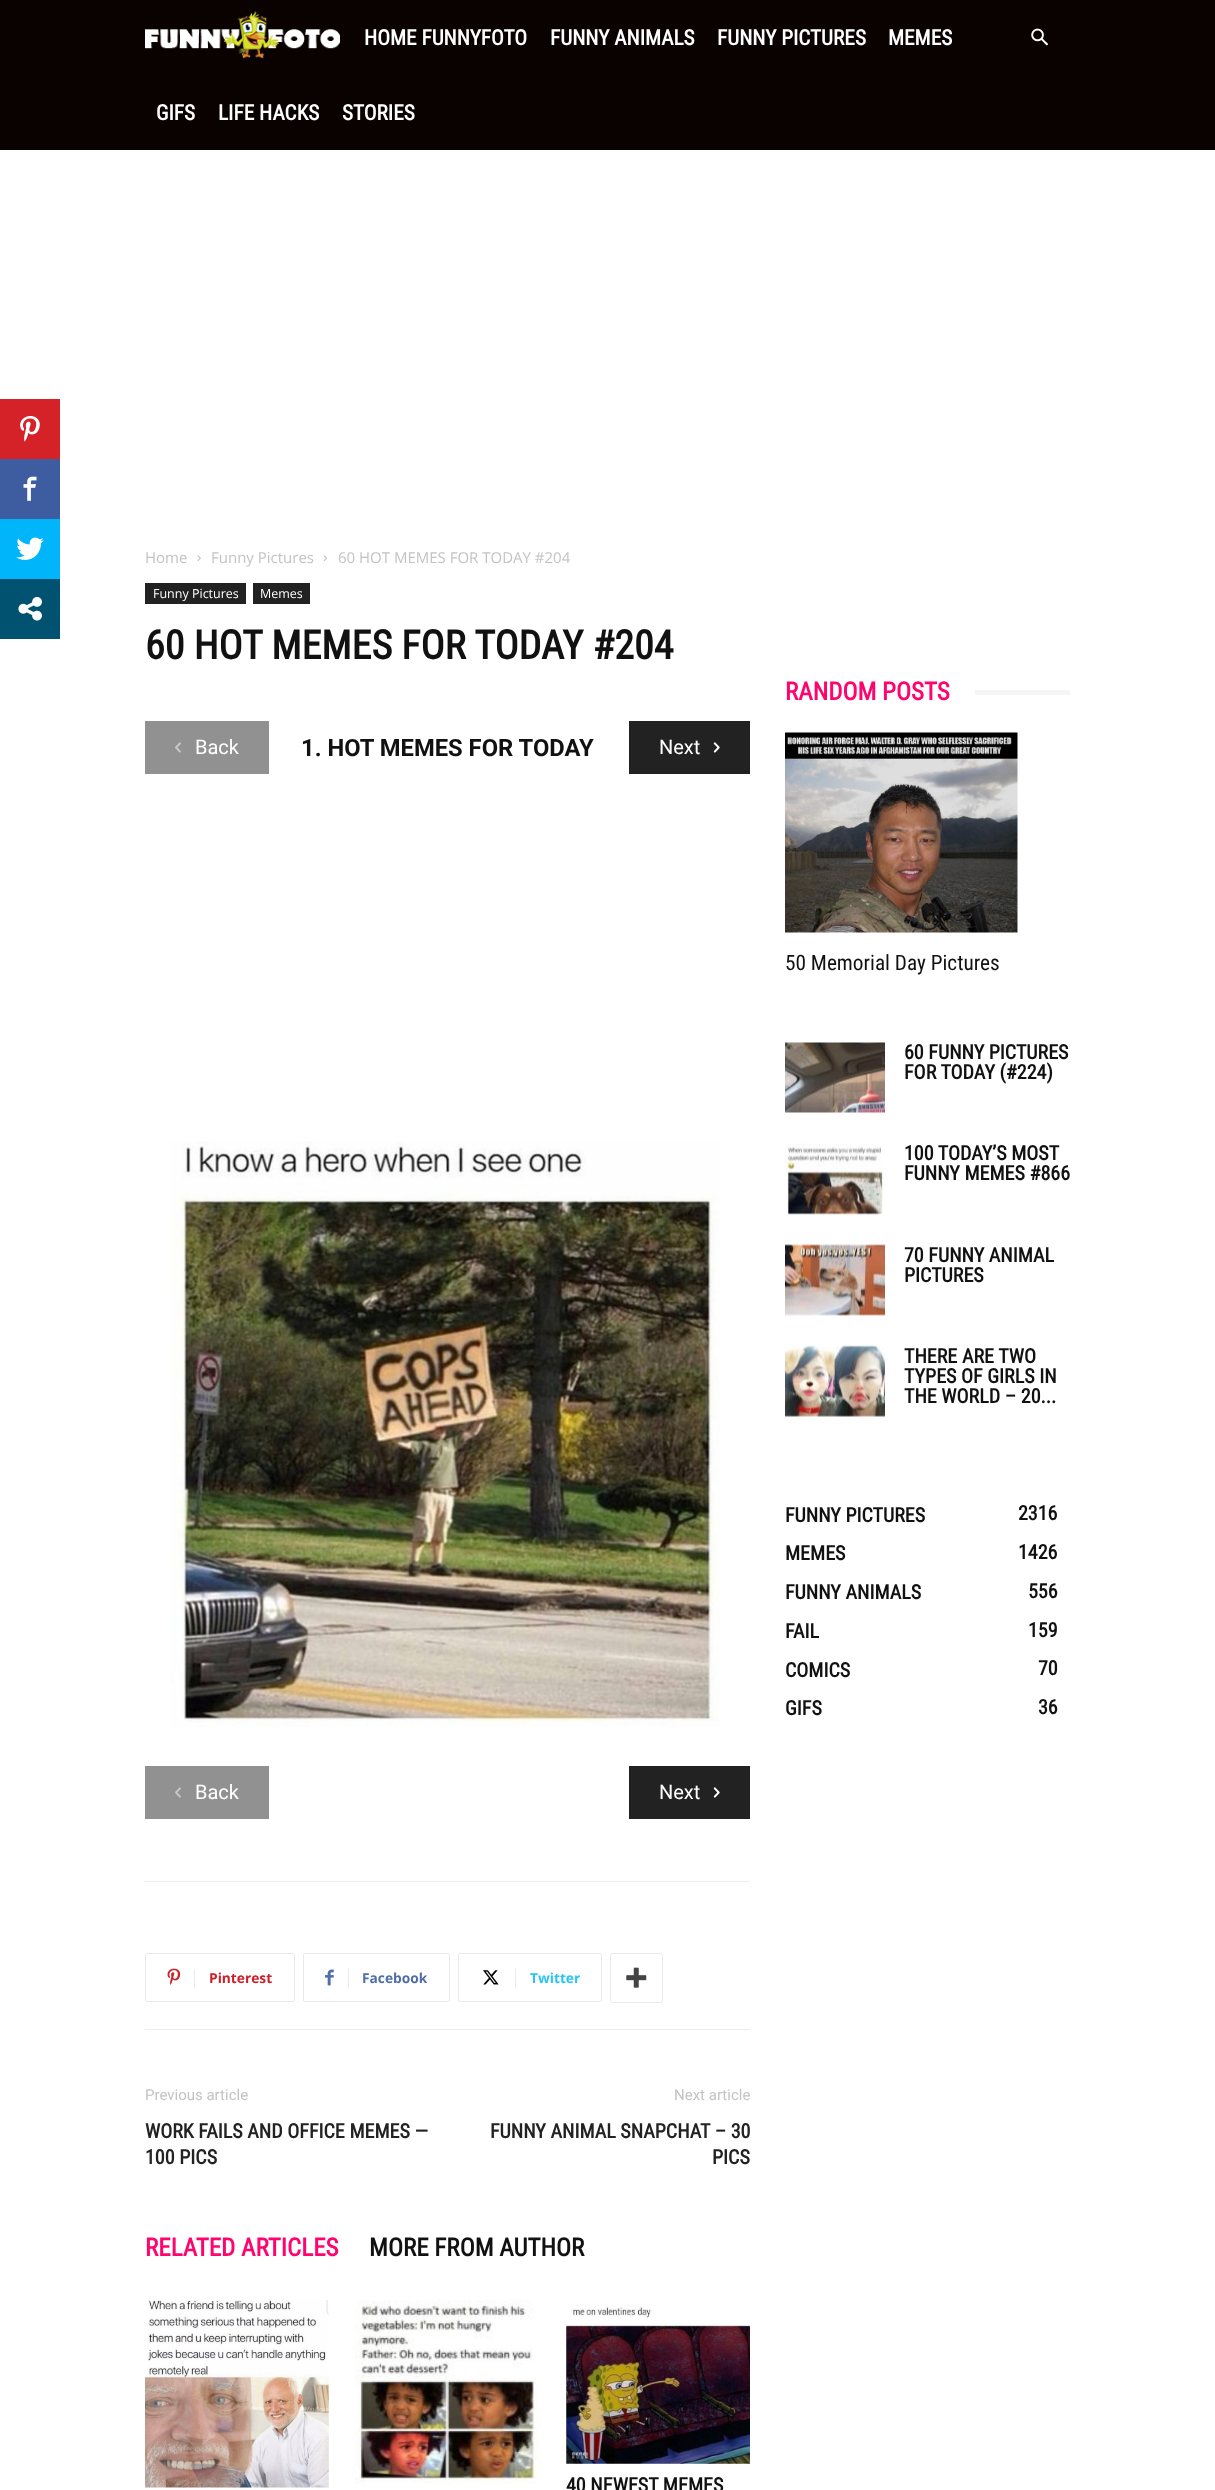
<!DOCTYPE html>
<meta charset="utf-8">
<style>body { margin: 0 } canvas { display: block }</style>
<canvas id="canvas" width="1215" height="2490"></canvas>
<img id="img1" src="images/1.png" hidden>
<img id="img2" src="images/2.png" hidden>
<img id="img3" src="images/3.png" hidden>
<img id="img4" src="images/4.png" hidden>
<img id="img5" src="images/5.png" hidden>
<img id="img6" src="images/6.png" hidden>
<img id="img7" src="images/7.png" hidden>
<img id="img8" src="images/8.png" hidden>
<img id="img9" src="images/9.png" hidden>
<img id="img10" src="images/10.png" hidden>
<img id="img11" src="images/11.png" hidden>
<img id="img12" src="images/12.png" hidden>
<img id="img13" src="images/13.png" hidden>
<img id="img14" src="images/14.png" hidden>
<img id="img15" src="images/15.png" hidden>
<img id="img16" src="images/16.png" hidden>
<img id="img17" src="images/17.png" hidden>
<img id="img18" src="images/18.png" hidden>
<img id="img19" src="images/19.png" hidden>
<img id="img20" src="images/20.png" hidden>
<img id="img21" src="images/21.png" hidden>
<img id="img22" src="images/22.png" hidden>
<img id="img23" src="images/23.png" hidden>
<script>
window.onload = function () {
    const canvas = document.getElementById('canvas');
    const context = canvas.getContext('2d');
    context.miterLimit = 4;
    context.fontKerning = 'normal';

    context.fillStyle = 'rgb(255, 255, 255)';
    context.fillRect(0, 0, 1215, 2490);
    context.fillStyle = 'rgb(213, 34, 41)';
    context.fillRect(0, 399, 60, 60);
    context.drawImage(document.getElementById('img1'), 20, 416, 20, 26);
    context.fillStyle = 'rgb(62, 93, 160)';
    context.fillRect(0, 459, 60, 60);
    context.drawImage(document.getElementById('img2'), 23, 476, 14, 25);
    context.fillStyle = 'rgb(0, 181, 249)';
    context.fillRect(0, 519, 60, 60);
    context.drawImage(document.getElementById('img3'), 16, 537, 28, 23);
    context.fillStyle = 'rgb(1, 82, 112)';
    context.fillRect(0, 579, 60, 60);
    context.drawImage(document.getElementById('img4'), 18, 597, 24, 24);
    context.fillStyle = 'rgb(10, 1, 1)';
    context.fillRect(0, 0, 1215, 150);
    context.drawImage(document.getElementById('img5'), 145, 11, 195, 48);
    context.drawImage(document.getElementById('img6'), 1031, 28, 17, 18);
    context.drawImage(document.getElementById('img7'), 197, 555, 4, 6);
    context.drawImage(document.getElementById('img8'), 323, 555, 4, 6);
    context.fillStyle = 'rgb(34, 34, 34)';
    context.fillRect(145, 583, 101, 21);
    context.fillRect(253, 583, 57, 21);
    context.drawImage(document.getElementById('img9'), 170, 1141, 550, 586);
    context.fillStyle = 'rgb(145, 145, 145)';
    context.fillRect(145, 1766, 124, 53);
    context.drawImage(document.getElementById('img10'), 175, 1787, 6, 11);
    context.fillStyle = 'rgb(34, 34, 34)';
    context.fillRect(629, 1766, 121, 53);
    context.drawImage(document.getElementById('img11'), 713, 1787, 7, 11);
    context.fillStyle = 'rgb(145, 145, 145)';
    context.fillRect(145, 721, 124, 53);
    context.drawImage(document.getElementById('img10'), 175, 742, 6, 11);
    context.fillStyle = 'rgb(34, 34, 34)';
    context.fillRect(629, 721, 121, 53);
    context.drawImage(document.getElementById('img11'), 713, 742, 7, 11);
    context.fillStyle = 'rgb(237, 237, 237)';
    context.fillRect(145, 1881, 605, 1);
    context.fillRect(145, 2029, 605, 1);
    context.fillStyle = 'rgb(233, 233, 233)';
    context.fillRect(145, 1954, 1, 47);
    context.drawImage(document.getElementById('img12'), 167, 1968, 14, 17);
    context.fillRect(146, 1953, 148, 1);
    context.fillRect(294, 1954, 1, 47);
    context.fillRect(146, 2001, 148, 1);
    context.fillStyle = 'rgb(235, 235, 235)';
    context.fillRect(194, 1969, 1, 20);
    context.fillStyle = 'rgb(233, 233, 233)';
    context.fillRect(303, 1954, 1, 47);
    context.drawImage(document.getElementById('img13'), 325, 1969, 9, 17);
    context.fillRect(304, 1953, 145, 1);
    context.fillRect(449, 1954, 1, 47);
    context.fillRect(304, 2001, 145, 1);
    context.fillStyle = 'rgb(235, 235, 235)';
    context.fillRect(348, 1969, 1, 20);
    context.fillStyle = 'rgb(233, 233, 233)';
    context.fillRect(458, 1954, 1, 47);
    context.drawImage(document.getElementById('img14'), 483, 1970, 16, 15);
    context.fillRect(459, 1953, 142, 1);
    context.fillRect(601, 1954, 1, 47);
    context.fillRect(459, 2001, 142, 1);
    context.fillStyle = 'rgb(235, 235, 235)';
    context.fillRect(515, 1969, 1, 20);
    context.beginPath();
    context.roundRect(610.5, 1953.5, 52, 49, 2);
    context.strokeStyle = 'rgb(233, 233, 233)';
    context.stroke();
    context.drawImage(document.getElementById('img15'), 626, 1967, 21, 21);
    context.drawImage(document.getElementById('img16'), 145, 2300, 184, 188);
    context.drawImage(document.getElementById('img17'), 355, 2300, 185, 184);
    context.drawImage(document.getElementById('img18'), 566, 2307, 184, 157);
    context.fillStyle = 'rgb(245, 245, 245)';
    context.fillRect(975, 690, 95, 5);
    context.drawImage(document.getElementById('img19'), 785, 732, 233, 201);
    context.drawImage(document.getElementById('img20'), 785, 1042, 100, 71);
    context.drawImage(document.getElementById('img21'), 785, 1143, 100, 72);
    context.drawImage(document.getElementById('img22'), 785, 1244, 100, 72);
    context.drawImage(document.getElementById('img23'), 785, 1345, 100, 72);
    context.font = 'bold 21.25px Roboto Condensed';
    context.fillStyle = 'rgb(255, 255, 255)';
    context.fillText('HOME FUNNYFOTO', 364, 45);
    context.fillText('FUNNY ANIMALS', 550, 45);
    context.fillText('FUNNY PICTURES', 717, 45);
    context.fillText('MEMES', 888, 45);
    context.fillText('GIFS', 156, 120);
    context.fillText('LIFE HACKS', 218, 120);
    context.fillText('STORIES', 342, 120);
    context.font = '15px Open Sans';
    context.fillStyle = 'rgb(195, 195, 195)';
    context.fillText('Home', 145, 563);
    context.fillText('Funny Pictures', 211, 563);
    context.fillText('60 HOT MEMES FOR TODAY #204', 338, 563);
    context.font = '12.5px Open Sans';
    context.fillStyle = 'rgb(255, 255, 255)';
    context.fillText('Funny Pictures', 153, 598);
    context.fillText('Memes', 260, 598);
    context.font = 'bold 40px Roboto Condensed';
    context.fillStyle = 'rgb(17, 17, 17)';
    context.fillText('60 HOT MEMES FOR TODAY #204', 145, 659);
    context.font = 'bold 23.75px Roboto';
    context.fillText('1. HOT MEMES FOR TODAY', 301, 756);
    context.font = '20px Roboto';
    context.fillStyle = 'rgb(255, 255, 255)';
    context.fillText('Back', 195, 1799);
    context.fillText('Next', 659, 1799);
    context.fillText('Back', 195, 754);
    context.fillText('Next', 659, 754);
    context.font = 'bold 13.75px Open Sans';
    context.fillStyle = 'rgb(202, 33, 42)';
    context.fillText('Pinterest', 209, 1983);
    context.fillStyle = 'rgb(81, 110, 171)';
    context.fillText('Facebook', 362, 1983);
    context.fillStyle = 'rgb(41, 197, 246)';
    context.fillText('Twitter', 530, 1983);
    context.font = '15px Roboto';
    context.fillStyle = 'rgb(195, 195, 195)';
    context.fillText('Previous article', 145, 2100);
    context.font = 'bold 20px Roboto Condensed';
    context.fillStyle = 'rgb(34, 34, 34)';
    context.fillText('WORK FAILS AND OFFICE MEMES —', 145, 2138);
    context.fillText('100 PICS', 145, 2164);
    context.font = '15px Roboto';
    context.fillStyle = 'rgb(195, 195, 195)';
    context.fillText('Next article', 674, 2100);
    context.font = 'bold 20px Roboto Condensed';
    context.fillStyle = 'rgb(34, 34, 34)';
    context.fillText('FUNNY ANIMAL SNAPCHAT – 30', 490, 2138);
    context.fillText('PICS', 712, 2164);
    context.font = 'bold 25px Roboto Condensed';
    context.fillStyle = 'rgb(255, 3, 110)';
    context.fillText('RELATED ARTICLES', 145, 2256);
    context.fillStyle = 'rgb(17, 17, 17)';
    context.fillText('MORE FROM AUTHOR', 369, 2256);
    context.font = 'bold 20px Roboto Condensed';
    context.fillText('40 NEWEST MEMES', 566, 2492);
    context.font = 'bold 25px Roboto Condensed';
    context.fillStyle = 'rgb(255, 3, 110)';
    context.fillText('RANDOM POSTS', 785, 700);
    context.font = '21.25px Roboto Condensed';
    context.fillStyle = 'rgb(17, 17, 17)';
    context.fillText('50 Memorial Day Pictures', 785, 970);
    context.font = 'bold 20px Roboto Condensed';
    context.fillText('60 FUNNY PICTURES', 904, 1059);
    context.fillText('FOR TODAY (#224)', 904, 1079);
    context.fillText('100 TODAY’S MOST', 904, 1160);
    context.fillText('FUNNY MEMES #866', 904, 1180);
    context.fillText('70 FUNNY ANIMAL', 904, 1262);
    context.fillText('PICTURES', 904, 1282);
    context.fillText('THERE ARE TWO', 904, 1363);
    context.fillText('TYPES OF GIRLS IN', 904, 1383);
    context.fillText('THE WORLD – 20...', 904, 1403);
    context.fillText('FUNNY PICTURES', 785, 1522);
    context.fillText('2316', 1018, 1520);
    context.fillText('MEMES', 785, 1560);
    context.fillText('1426', 1018, 1559);
    context.fillText('FUNNY ANIMALS', 785, 1599);
    context.fillText('556', 1028, 1598);
    context.fillText('FAIL', 785, 1638);
    context.fillText('159', 1028, 1637);
    context.fillText('COMICS', 785, 1677);
    context.fillText('70', 1038, 1675);
    context.fillText('GIFS', 785, 1715);
    context.fillText('36', 1038, 1714);
};
</script>
